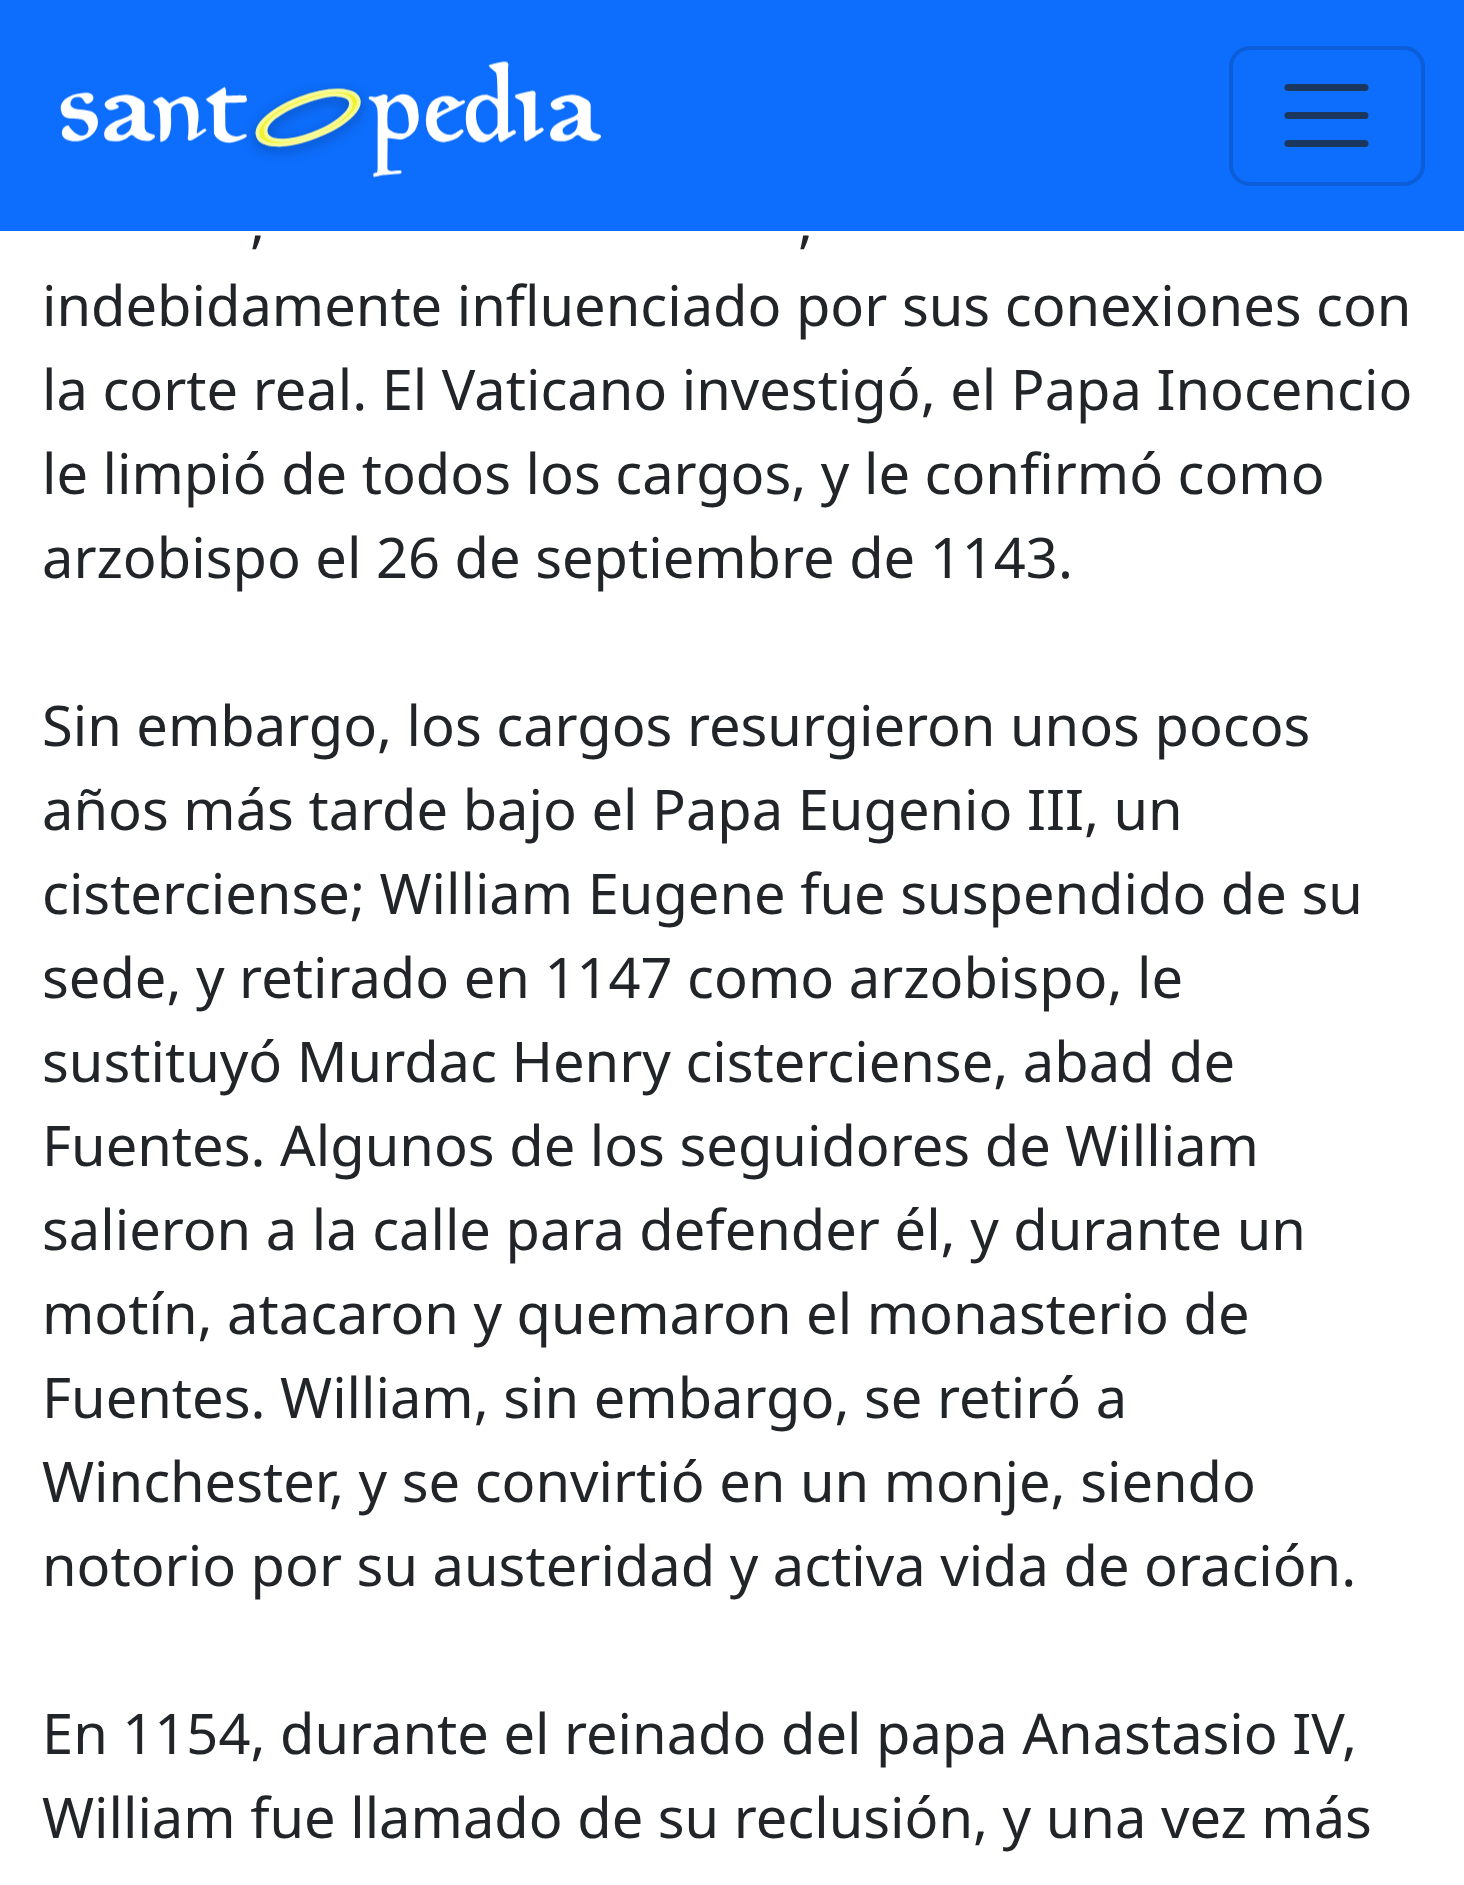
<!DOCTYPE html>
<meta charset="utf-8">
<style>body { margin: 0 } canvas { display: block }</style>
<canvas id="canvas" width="1464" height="1885"></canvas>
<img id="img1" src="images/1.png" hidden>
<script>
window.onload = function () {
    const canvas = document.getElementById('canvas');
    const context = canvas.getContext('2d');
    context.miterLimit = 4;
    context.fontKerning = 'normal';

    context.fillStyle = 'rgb(255, 255, 255)';
    context.fillRect(0, 0, 1464, 1885);
    context.fillStyle = 'rgb(13, 110, 253)';
    context.fillRect(0, 0, 1464, 231);
    context.drawImage(document.getElementById('img1'), 60, 61, 541, 117);
    context.beginPath();
    context.roundRect(1231, 48, 192, 136, 19);
    context.strokeStyle = 'rgb(11, 94, 215)';
    context.lineWidth = 4;
    context.stroke();
    context.beginPath();
    context.moveTo(1288, 87.5);
    context.lineTo(1365, 87.5);
    context.moveTo(1288, 115.5);
    context.lineTo(1365, 115.5);
    context.moveTo(1288, 143.5);
    context.lineTo(1365, 143.5);
    context.strokeStyle = 'rgb(28, 55, 94)';
    context.lineWidth = 7;
    context.lineCap = 'round';
    context.stroke();
    context.font = '56px Noto Sans';
    context.fillStyle = 'rgb(33, 37, 41)';
    context.fillText(',', 250, 242);
    context.fillText(',', 798, 242);
    context.fillText('indebidamente influenciado por sus conexiones con', 42, 326);
    context.fillText('la corte real. El Vaticano investigó, el Papa Inocencio', 42, 410);
    context.fillText('le limpió de todos los cargos, y le confirmó como', 42, 494);
    context.fillText('arzobispo el 26 de septiembre de 1143.', 42, 578);
    context.fillText('Sin embargo, los cargos resurgieron unos pocos', 42, 746);
    context.fillText('años más tarde bajo el Papa Eugenio III, un', 42, 830);
    context.fillText('cisterciense; William Eugene fue suspendido de su', 42, 914);
    context.fillText('sede, y retirado en 1147 como arzobispo, le', 42, 998);
    context.fillText('sustituyó Murdac Henry cisterciense, abad de', 42, 1082);
    context.fillText('Fuentes. Algunos de los seguidores de William', 42, 1166);
    context.fillText('salieron a la calle para defender él, y durante un', 42, 1250);
    context.fillText('motín, atacaron y quemaron el monasterio de', 42, 1334);
    context.fillText('Fuentes. William, sin embargo, se retiró a', 42, 1418);
    context.fillText('Winchester, y se convirtió en un monje, siendo', 42, 1502);
    context.fillText('notorio por su austeridad y activa vida de oración.', 42, 1586);
    context.fillText('En 1154, durante el reinado del papa Anastasio IV,', 42, 1754);
    context.fillText('William fue llamado de su reclusión, y una vez más', 42, 1838);
};
</script>
